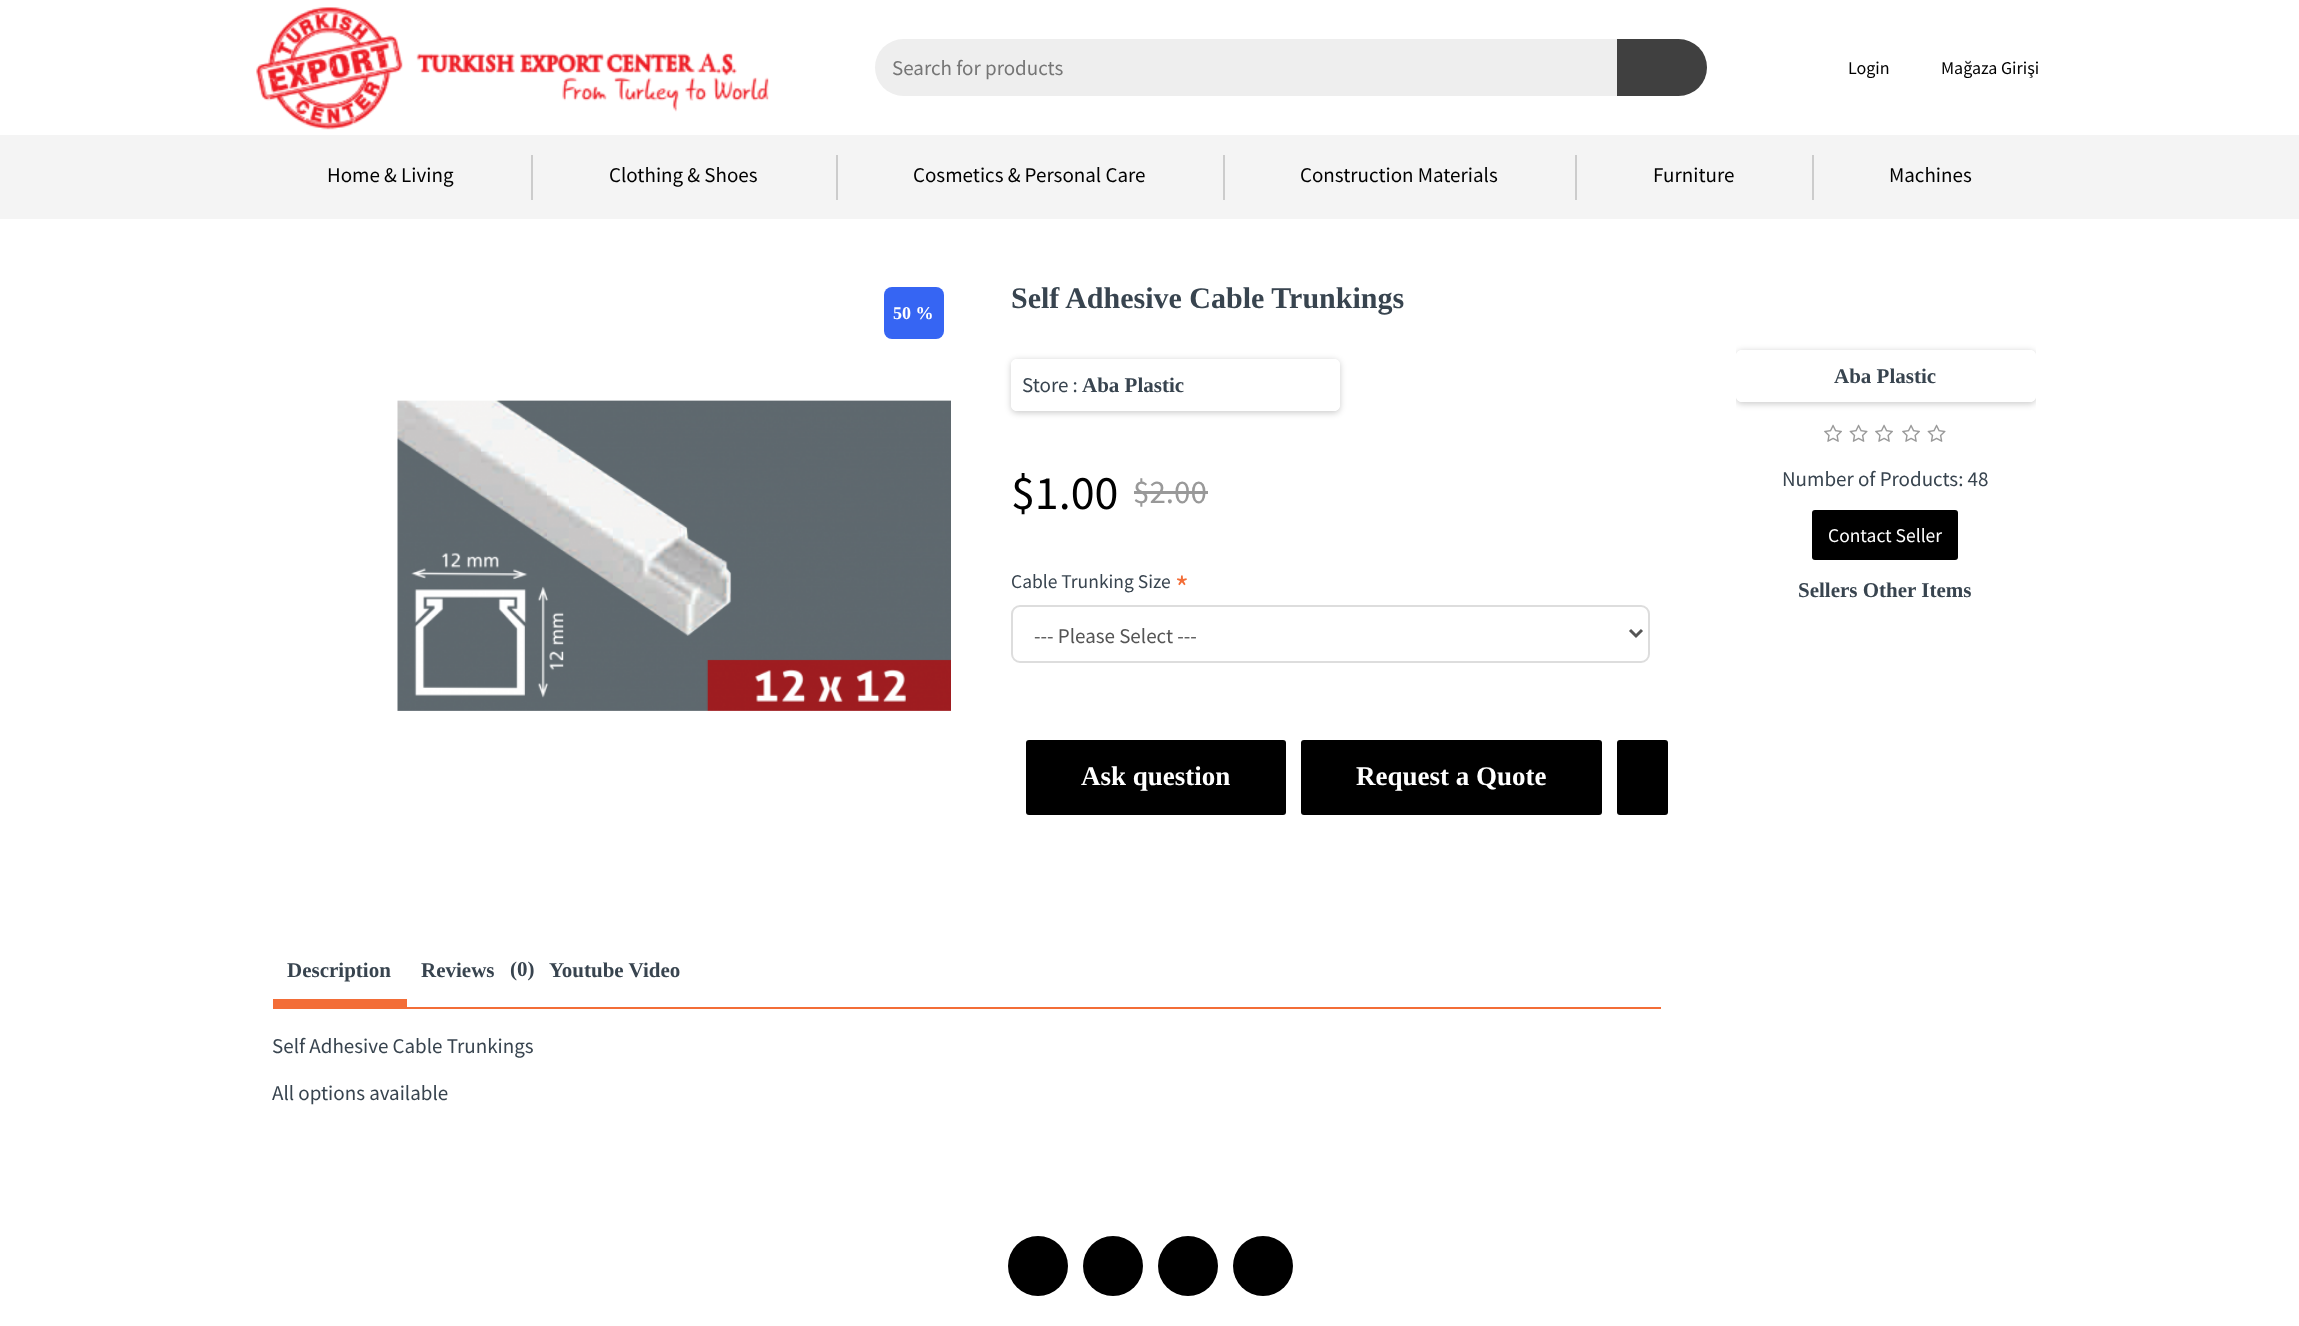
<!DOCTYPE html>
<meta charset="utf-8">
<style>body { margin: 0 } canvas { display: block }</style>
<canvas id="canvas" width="2299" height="1326"></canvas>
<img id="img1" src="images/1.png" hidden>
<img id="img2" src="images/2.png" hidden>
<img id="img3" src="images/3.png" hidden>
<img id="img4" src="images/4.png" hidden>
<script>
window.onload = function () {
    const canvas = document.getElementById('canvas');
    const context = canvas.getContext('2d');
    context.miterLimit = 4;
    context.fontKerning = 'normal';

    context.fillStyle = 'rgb(255, 255, 255)';
    context.fillRect(0, 0, 2299, 1326);
    context.drawImage(document.getElementById('img1'), 256, 7, 513, 123);
    context.fillStyle = 'rgb(238, 238, 238)';
    context.beginPath();
    context.roundRect(875, 39, 742, 57, [28.5, 0, 0, 28.5]);
    context.fill();
    context.fillStyle = 'rgb(64, 64, 64)';
    context.beginPath();
    context.roundRect(1617, 39, 90, 57, [0, 28.5, 28.5, 0]);
    context.fill();
    context.fillStyle = 'rgb(244, 244, 244)';
    context.fillRect(0, 135, 2299, 84);
    context.fillStyle = 'rgb(204, 204, 204)';
    context.fillRect(531, 155, 2, 45);
    context.fillRect(836, 155, 2, 45);
    context.fillRect(1223, 155, 2, 45);
    context.fillRect(1575, 155, 2, 45);
    context.fillRect(1812, 155, 2, 45);
    context.fillStyle = 'rgb(54, 101, 243)';
    context.beginPath();
    context.roundRect(884, 287, 60, 52, 8);
    context.fill();
    context.drawImage(document.getElementById('img2'), 397, 400, 554, 311);
    context.save();
    context.beginPath();
    context.moveTo(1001, 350);
    context.lineTo(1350, 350);
    context.lineTo(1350, 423);
    context.lineTo(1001, 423);
    context.closePath();
    context.moveTo(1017, 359);
    context.lineTo(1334, 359);
    context.bezierCurveTo(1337.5, 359, 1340, 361.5, 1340, 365);
    context.lineTo(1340, 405);
    context.bezierCurveTo(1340, 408.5, 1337.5, 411, 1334, 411);
    context.lineTo(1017, 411);
    context.bezierCurveTo(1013.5, 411, 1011, 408.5, 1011, 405);
    context.lineTo(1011, 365);
    context.bezierCurveTo(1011, 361.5, 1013.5, 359, 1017, 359);
    context.closePath();
    context.clip('evenodd');
    context.fillStyle = 'rgba(0, 0, 0, 0.2)';
    context.filter = 'blur(3px)';
    context.beginPath();
    context.roundRect(1011, 360, 329, 53, 6);
    context.fill();
    context.filter = 'none';
    context.restore();
    context.beginPath();
    context.roundRect(1014, 362, 323, 46, 3);
    context.strokeStyle = 'rgb(255, 255, 255)';
    context.lineWidth = 6;
    context.stroke();
    context.fillStyle = 'rgb(153, 153, 153)';
    context.fillRect(1134, 491, 74, 3);
    context.beginPath();
    context.roundRect(1012, 606, 637, 56, 8);
    context.strokeStyle = 'rgb(221, 221, 221)';
    context.lineWidth = 2;
    context.stroke();
    context.beginPath();
    context.moveTo(1630, 630);
    context.lineTo(1636, 636);
    context.lineTo(1642, 630);
    context.strokeStyle = 'rgb(85, 85, 85)';
    context.lineWidth = 3;
    context.stroke();
    context.fillStyle = 'rgb(0, 0, 0)';
    context.beginPath();
    context.roundRect(1026, 740, 260, 75, 3);
    context.fill();
    context.beginPath();
    context.roundRect(1301, 740, 301, 75, 3);
    context.fill();
    context.beginPath();
    context.roundRect(1617, 740, 51, 75, 3);
    context.fill();
    context.fillStyle = 'rgb(243, 109, 55)';
    context.fillRect(273, 1007, 1388, 2);
    context.fillRect(273, 999, 134, 8);
    context.save();
    context.beginPath();
    context.rect(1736, 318, 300, 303);
    context.clip();
    context.beginPath();
    context.moveTo(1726, 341);
    context.lineTo(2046, 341);
    context.lineTo(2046, 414);
    context.lineTo(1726, 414);
    context.closePath();
    context.moveTo(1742, 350);
    context.lineTo(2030, 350);
    context.bezierCurveTo(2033.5, 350, 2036, 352.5, 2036, 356);
    context.lineTo(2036, 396);
    context.bezierCurveTo(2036, 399.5, 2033.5, 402, 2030, 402);
    context.lineTo(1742, 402);
    context.bezierCurveTo(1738.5, 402, 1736, 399.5, 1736, 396);
    context.lineTo(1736, 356);
    context.bezierCurveTo(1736, 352.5, 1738.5, 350, 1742, 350);
    context.closePath();
    context.clip('evenodd');
    context.fillStyle = 'rgba(0, 0, 0, 0.2)';
    context.filter = 'blur(3px)';
    context.beginPath();
    context.roundRect(1736, 351, 300, 53, 6);
    context.fill();
    context.filter = 'none';
    context.restore();
    context.beginPath();
    context.roundRect(1739, 353, 294, 46, 3);
    context.strokeStyle = 'rgb(255, 255, 255)';
    context.lineWidth = 6;
    context.stroke();
    context.drawImage(document.getElementById('img3'), 1824, 424, 18, 18);
    context.drawImage(document.getElementById('img4'), 1849, 424, 19, 18);
    context.drawImage(document.getElementById('img3'), 1875, 424, 18, 18);
    context.drawImage(document.getElementById('img3'), 1902, 424, 18, 18);
    context.drawImage(document.getElementById('img4'), 1927, 424, 19, 18);
    context.fillStyle = 'rgb(0, 0, 0)';
    context.beginPath();
    context.roundRect(1812, 510, 146, 50, 3);
    context.fill();
    context.beginPath();
    context.arc(1038, 1266, 30, 0, 2 * Math.PI);
    context.fill();
    context.beginPath();
    context.arc(1113, 1266, 30, 0, 2 * Math.PI);
    context.fill();
    context.beginPath();
    context.arc(1188, 1266, 30, 0, 2 * Math.PI);
    context.fill();
    context.beginPath();
    context.arc(1263, 1266, 30, 0, 2 * Math.PI);
    context.fill();
    context.font = '21px Source Sans Pro';
    context.fillStyle = 'rgb(117, 117, 117)';
    context.fillText('Search for products', 892, 75);
    context.font = '18px Source Sans Pro';
    context.fillStyle = 'rgb(0, 0, 0)';
    context.fillText('Login', 1848, 74);
    context.fillText('Mağaza Girişi', 1941, 74);
    context.font = '21px Source Sans Pro';
    context.fillText('Home & Living', 327, 182);
    context.fillText('Clothing & Shoes', 609, 182);
    context.fillText('Cosmetics & Personal Care', 913, 182);
    context.fillText('Construction Materials', 1300, 182);
    context.fillText('Furniture', 1653, 182);
    context.fillText('Machines', 1889, 182);
    context.font = 'bold 18px Liberation Serif';
    context.fillStyle = 'rgb(255, 255, 255)';
    context.fillText('50 %', 893, 319);
    context.font = 'bold 30px Liberation Serif';
    context.fillStyle = 'rgb(56, 68, 79)';
    context.fillText('Self Adhesive Cable Trunkings', 1011, 308);
    context.font = '21px Source Sans Pro';
    context.fillText('Store :', 1022, 392);
    context.font = 'bold 21px Liberation Serif';
    context.fillText('Aba Plastic', 1082, 392);
    context.font = '48px Source Sans Pro';
    context.fillStyle = 'rgb(0, 0, 0)';
    context.fillText('$1.00', 1011, 509);
    context.font = '33px Source Sans Pro';
    context.fillStyle = 'rgb(153, 153, 153)';
    context.fillText('$2.00', 1133, 503);
    context.font = '19.5px Source Sans Pro';
    context.fillStyle = 'rgb(56, 68, 79)';
    context.fillText('Cable Trunking Size', 1011, 588);
    context.font = '33px Source Sans Pro';
    context.fillStyle = 'rgb(243, 109, 55)';
    context.fillText('*', 1175, 599);
    context.font = '21px Source Sans Pro';
    context.fillStyle = 'rgb(85, 85, 85)';
    context.fillText('--- Please Select ---', 1034, 643);
    context.font = 'bold 27px Liberation Serif';
    context.fillStyle = 'rgb(255, 255, 255)';
    context.fillText('Ask question', 1081, 785);
    context.fillText('Request a Quote', 1356, 785);
    context.font = 'bold 21px Liberation Serif';
    context.fillStyle = 'rgb(56, 68, 79)';
    context.fillText('Description', 287, 977);
    context.fillText('Reviews', 421, 977);
    context.fillText('(0)', 510, 976);
    context.fillText('Youtube Video', 549, 977);
    context.font = '21px Source Sans Pro';
    context.fillText('Self Adhesive Cable Trunkings', 272, 1053);
    context.fillText('All options available', 272, 1100);
    context.font = 'bold 21px Liberation Serif';
    context.fillText('Aba Plastic', 1834, 383);
    context.font = '21px Source Sans Pro';
    context.fillText('Number of Products: 48', 1782, 486);
    context.font = '19.5px Source Sans Pro';
    context.fillStyle = 'rgb(255, 255, 255)';
    context.fillText('Contact Seller', 1828, 542);
    context.font = 'bold 21px Liberation Serif';
    context.fillStyle = 'rgb(56, 68, 79)';
    context.fillText('Sellers Other Items', 1798, 597);
};
</script>
